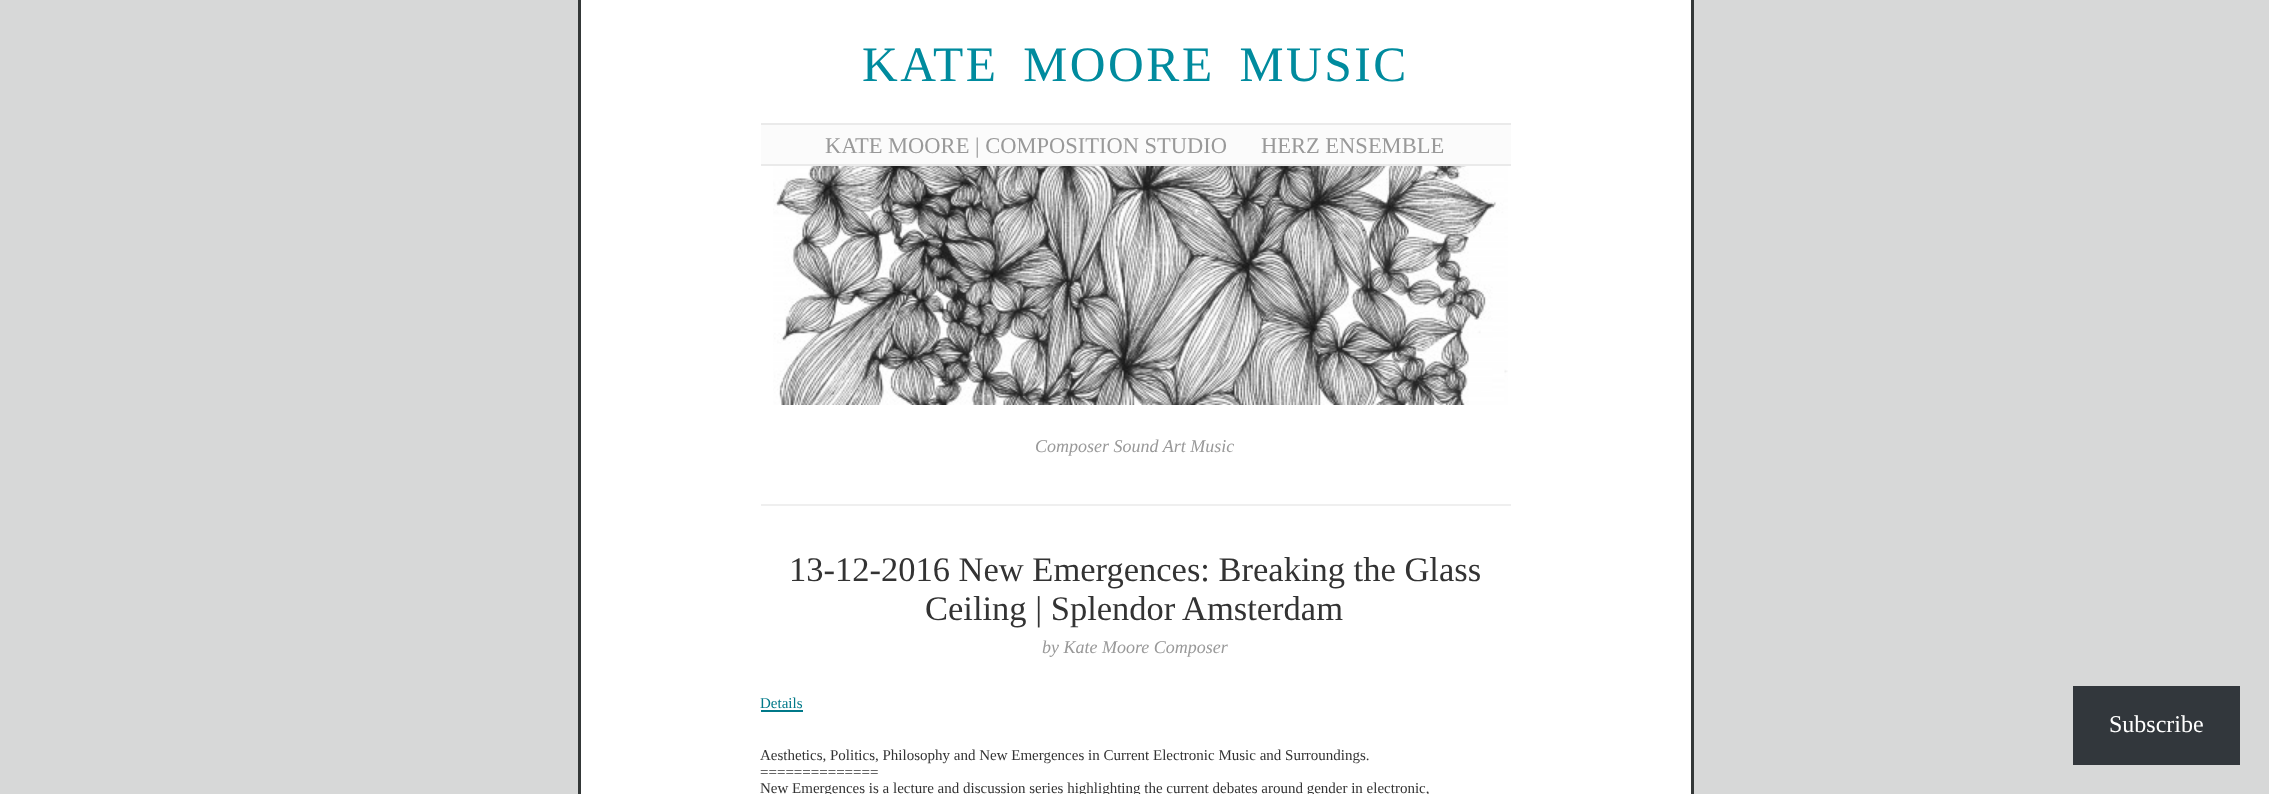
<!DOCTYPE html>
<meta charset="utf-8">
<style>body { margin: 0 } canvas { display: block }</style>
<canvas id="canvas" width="2269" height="794"></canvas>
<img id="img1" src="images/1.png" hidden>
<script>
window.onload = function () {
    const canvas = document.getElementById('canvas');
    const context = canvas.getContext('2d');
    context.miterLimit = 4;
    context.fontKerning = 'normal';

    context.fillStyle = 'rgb(215, 216, 216)';
    context.fillRect(0, 0, 2269, 794);
    context.fillStyle = 'rgb(255, 255, 255)';
    context.fillRect(581, 0, 1110, 794);
    context.fillStyle = 'rgb(52, 56, 56)';
    context.fillRect(1691, 0, 3, 794);
    context.fillRect(578, 0, 3, 794);
    context.fillStyle = 'rgb(251, 251, 251)';
    context.fillRect(761, 125, 750, 39);
    context.fillStyle = 'rgb(234, 234, 234)';
    context.fillRect(761, 123, 750, 2);
    context.fillRect(761, 164, 750, 2);
    context.drawImage(document.getElementById('img1'), 773, 166, 735, 239);
    context.fillStyle = 'rgb(239, 239, 239)';
    context.fillRect(761, 504, 750, 2);
    context.fillStyle = 'rgb(0, 121, 137)';
    context.fillRect(761, 710, 42, 2);
    context.fillStyle = 'rgb(50, 55, 60)';
    context.fillRect(2073, 686, 167, 79);
    context.letterSpacing = '2.5px';
    context.wordSpacing = '10px';
    context.font = '49.5px Liberation Serif';
    context.fillStyle = 'rgb(0, 139, 158)';
    context.fillText('KATE MOORE MUSIC', 862, 81);
    context.letterSpacing = '0px';
    context.wordSpacing = '0px';
    context.font = '22.5px Liberation Serif';
    context.fillStyle = 'rgb(153, 153, 153)';
    context.fillText('KATE MOORE | COMPOSITION STUDIO', 825, 153);
    context.fillText('HERZ ENSEMBLE', 1261, 153);
    context.font = 'italic 18px Liberation Serif';
    context.fillText('Composer Sound Art Music', 1035, 452);
    context.font = '34.5px Liberation Serif';
    context.fillStyle = 'rgb(51, 51, 51)';
    context.fillText('13-12-2016 New Emergences: Breaking the Glass', 789, 581);
    context.fillText('Ceiling | Splendor Amsterdam', 925, 620);
    context.font = 'italic 18px Liberation Serif';
    context.fillStyle = 'rgb(153, 153, 153)';
    context.fillText('by Kate Moore Composer', 1042, 653);
    context.font = '15px Liberation Serif';
    context.fillStyle = 'rgb(0, 121, 137)';
    context.fillText('Details', 760, 708);
    context.fillStyle = 'rgb(51, 51, 51)';
    context.fillText('Aesthetics, Politics, Philosophy and New Emergences in Current Electronic Music and Surroundings.', 760, 760);
    context.fillText('==============', 760, 777);
    context.fillText('New Emergences is a lecture and discussion series highlighting the current debates around gender in electronic,', 760, 793);
    context.font = '24px Liberation Serif';
    context.fillStyle = 'rgb(255, 255, 255)';
    context.fillText('Subscribe', 2109, 732);
};
</script>
